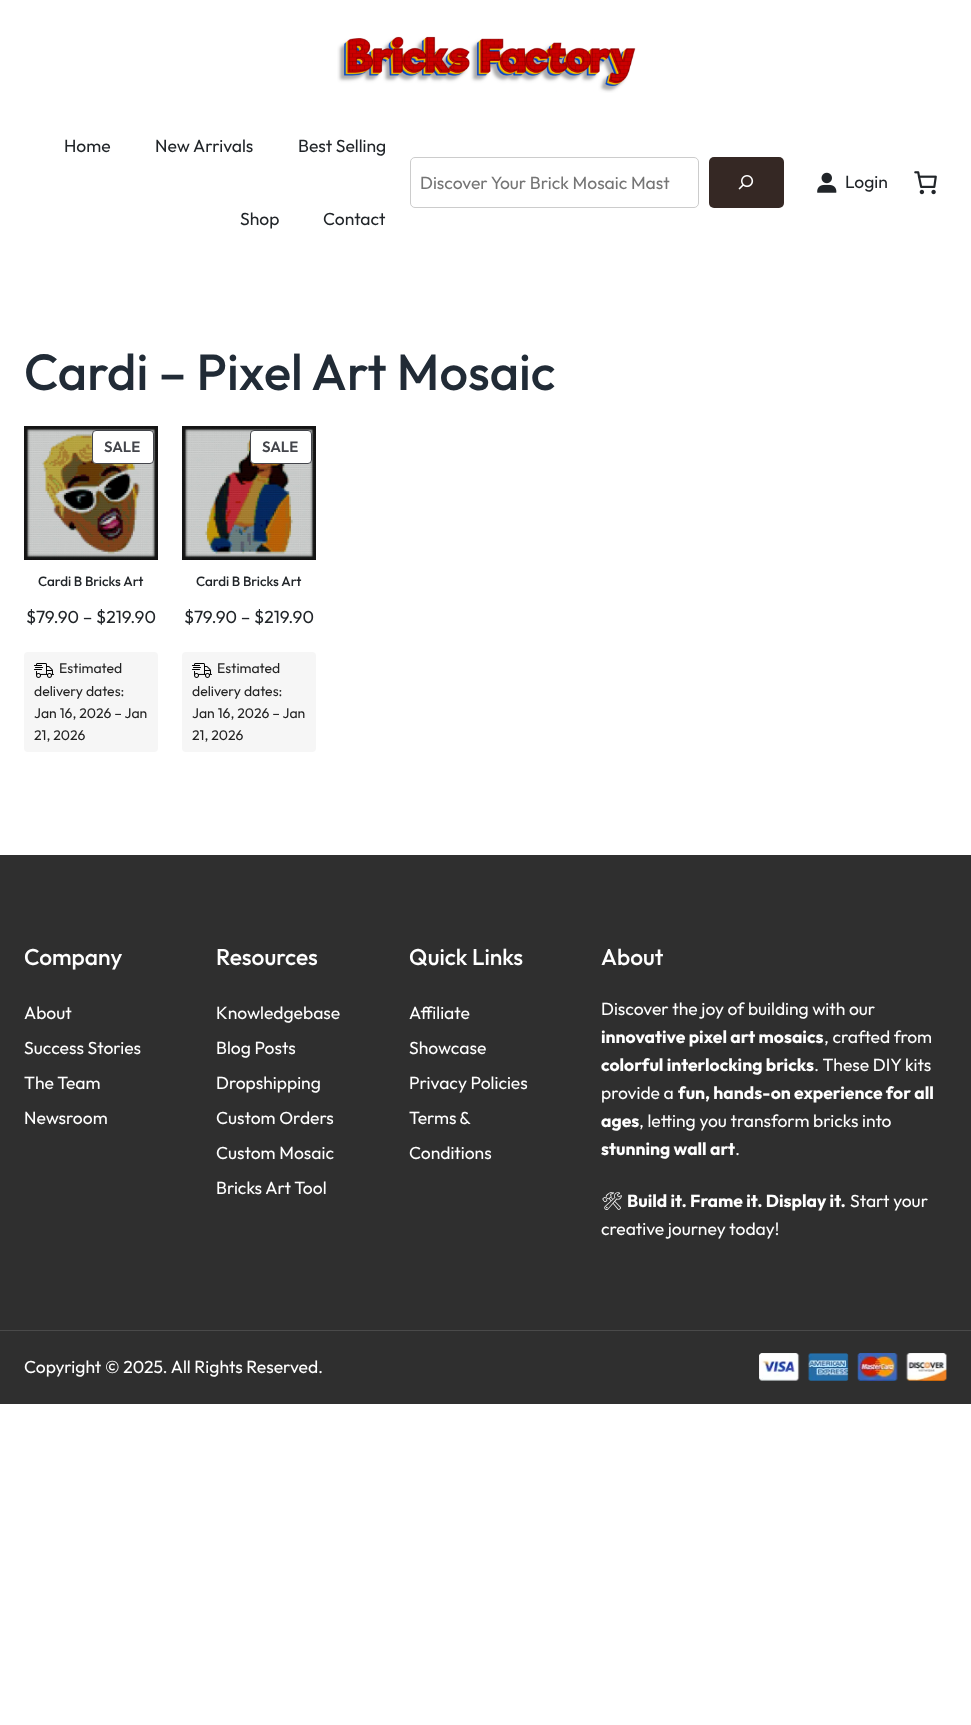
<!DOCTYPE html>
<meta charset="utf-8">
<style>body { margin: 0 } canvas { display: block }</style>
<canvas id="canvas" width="971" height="1725"></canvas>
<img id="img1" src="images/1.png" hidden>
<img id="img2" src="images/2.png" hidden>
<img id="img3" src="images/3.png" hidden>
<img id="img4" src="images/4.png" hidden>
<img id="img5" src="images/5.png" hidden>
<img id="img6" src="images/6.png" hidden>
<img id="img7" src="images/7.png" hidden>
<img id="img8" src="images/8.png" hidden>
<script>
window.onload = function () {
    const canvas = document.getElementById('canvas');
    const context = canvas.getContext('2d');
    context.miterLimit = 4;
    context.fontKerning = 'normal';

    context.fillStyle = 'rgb(255, 255, 255)';
    context.fillRect(0, 0, 971, 1725);
    context.drawImage(document.getElementById('img1'), 337, 36, 299, 57);
    context.beginPath();
    context.roundRect(410.5, 157.5, 288, 50, 4.5);
    context.strokeStyle = 'rgb(204, 204, 204)';
    context.stroke();
    context.fillStyle = 'rgb(53, 40, 36)';
    context.beginPath();
    context.roundRect(709, 157, 75, 51, 5);
    context.fill();
    context.drawImage(document.getElementById('img2'), 738, 175, 16, 15);
    context.drawImage(document.getElementById('img3'), 817, 172, 20, 21);
    context.drawImage(document.getElementById('img4'), 914, 171, 23, 24);
    context.drawImage(document.getElementById('img5'), 24, 426, 134, 134);
    context.fillStyle = 'rgb(255, 255, 255)';
    context.beginPath();
    context.roundRect(92.5, 430.5, 61, 33, 3.5);
    context.fill();
    context.strokeStyle = 'rgb(67, 69, 75)';
    context.stroke();
    context.fillStyle = 'rgb(246, 246, 246)';
    context.beginPath();
    context.roundRect(24, 652, 134, 100, 4);
    context.fill();
    context.drawImage(document.getElementById('img6'), 34, 663, 20, 15);
    context.drawImage(document.getElementById('img7'), 182, 426, 134, 134);
    context.fillStyle = 'rgb(255, 255, 255)';
    context.beginPath();
    context.roundRect(250.5, 430.5, 61, 33, 3.5);
    context.fill();
    context.stroke();
    context.fillStyle = 'rgb(246, 246, 246)';
    context.beginPath();
    context.roundRect(182, 652, 134, 100, 4);
    context.fill();
    context.drawImage(document.getElementById('img6'), 192, 663, 20, 15);
    context.fillStyle = 'rgb(47, 47, 47)';
    context.fillRect(0, 855, 971, 475);
    context.fillRect(0, 1331, 971, 73);
    context.fillStyle = 'rgb(74, 74, 74)';
    context.fillRect(0, 1330, 971, 1);
    context.drawImage(document.getElementById('img8'), 759, 1353, 188, 28);
    context.font = '17.5px Outfit';
    context.fillStyle = 'rgb(33, 37, 41)';
    context.fillText('Home', 64, 152);
    context.fillText('New Arrivals', 155, 152);
    context.fillText('Best Selling', 298, 152);
    context.fillText('Shop', 240, 225);
    context.fillText('Contact', 323, 225);
    context.fillStyle = 'rgb(117, 117, 117)';
    context.fillText('Discover Your Brick Mosaic Mast', 420, 189);
    context.fillStyle = 'rgb(33, 37, 41)';
    context.fillText('Login', 845, 188);
    context.font = '500 50.6px Outfit';
    context.fillStyle = 'rgb(33, 43, 54)';
    context.fillText('Cardi – Pixel Art Mosaic', 24, 390);
    context.font = '600 15px Outfit';
    context.fillStyle = 'rgb(67, 69, 75)';
    context.fillText('SALE', 104, 452);
    context.font = '500 13.5px Outfit';
    context.fillStyle = 'rgb(33, 37, 41)';
    context.fillText('Cardi B Bricks Art', 38, 586);
    context.font = '17.5px Outfit';
    context.fillText('$', 26, 623);
    context.fillText('79.90 – $219.90', 36, 623);
    context.font = '14px Outfit';
    context.fillStyle = 'rgb(34, 34, 34)';
    context.fillText('Estimated', 59, 673);
    context.fillText('delivery dates:', 34, 696);
    context.fillText('Jan 16, 2026 – Jan', 34, 718);
    context.fillText('21, 2026', 34, 740);
    context.font = '600 15px Outfit';
    context.fillStyle = 'rgb(67, 69, 75)';
    context.fillText('SALE', 262, 452);
    context.font = '500 13.5px Outfit';
    context.fillStyle = 'rgb(33, 37, 41)';
    context.fillText('Cardi B Bricks Art', 196, 586);
    context.font = '17.5px Outfit';
    context.fillText('$', 184, 623);
    context.fillText('79.90 – $219.90', 194, 623);
    context.font = '14px Outfit';
    context.fillStyle = 'rgb(34, 34, 34)';
    context.fillText('Estimated', 217, 673);
    context.fillText('delivery dates:', 192, 696);
    context.fillText('Jan 16, 2026 – Jan', 192, 718);
    context.fillText('21, 2026', 192, 740);
    context.font = '500 22.75px Outfit';
    context.fillStyle = 'rgb(255, 255, 255)';
    context.fillText('Company', 24, 965);
    context.font = '17.5px Outfit';
    context.fillText('About', 24, 1019);
    context.fillText('Success Stories', 24, 1054);
    context.fillText('The Team', 24, 1089);
    context.fillText('Newsroom', 24, 1124);
    context.font = '500 22.75px Outfit';
    context.fillText('Resources', 216, 965);
    context.font = '17.5px Outfit';
    context.fillText('Knowledgebase', 216, 1019);
    context.fillText('Blog Posts', 216, 1054);
    context.fillText('Dropshipping', 216, 1089);
    context.fillText('Custom Orders', 216, 1124);
    context.fillText('Custom Mosaic', 216, 1159);
    context.fillText('Bricks Art Tool', 216, 1194);
    context.font = '500 22.75px Outfit';
    context.fillText('Quick Links', 409, 965);
    context.font = '17.5px Outfit';
    context.fillText('Affiliate', 409, 1019);
    context.fillText('Showcase', 409, 1054);
    context.fillText('Privacy Policies', 409, 1089);
    context.wordSpacing = '-1px';
    context.fillText('Terms &', 409, 1124);
    context.wordSpacing = '0px';
    context.fillText('Conditions', 409, 1159);
    context.font = '500 22.75px Outfit';
    context.fillText('About', 601, 965);
    context.font = '17.5px Outfit';
    context.fillText('Discover the joy of building with our', 601, 1015);
    context.font = 'bold 17.5px Outfit';
    context.fillText('innovative pixel art mosaics', 601, 1043);
    context.font = '17.5px Outfit';
    context.fillText(', crafted from', 824, 1043);
    context.font = 'bold 17.5px Outfit';
    context.fillText('colorful interlocking bricks', 601, 1071);
    context.font = '17.5px Outfit';
    context.fillText('. These DIY kits', 814, 1071);
    context.fillText('provide a', 601, 1099);
    context.font = 'bold 17.5px Outfit';
    context.fillText('fun, hands-on experience for all', 678, 1099);
    context.fillText('ages', 601, 1127);
    context.font = '17.5px Outfit';
    context.fillText(', letting you transform bricks into', 639, 1127);
    context.font = 'bold 17.5px Outfit';
    context.fillText('stunning wall art', 601, 1155);
    context.font = '17.5px Outfit';
    context.fillText('.', 735, 1155);
    context.font = '17.5px Noto Emoji';
    context.fillText('🛠', 601, 1207);
    context.font = 'bold 17.5px Outfit';
    context.fillText('Build it. Frame it. Display it.', 627, 1207);
    context.font = '17.5px Outfit';
    context.fillText('Start your', 850, 1207);
    context.fillText('creative journey today!', 601, 1235);
    context.fillText('Copyright © 2025. All Rights Reserved.', 24, 1373);
};
</script>
